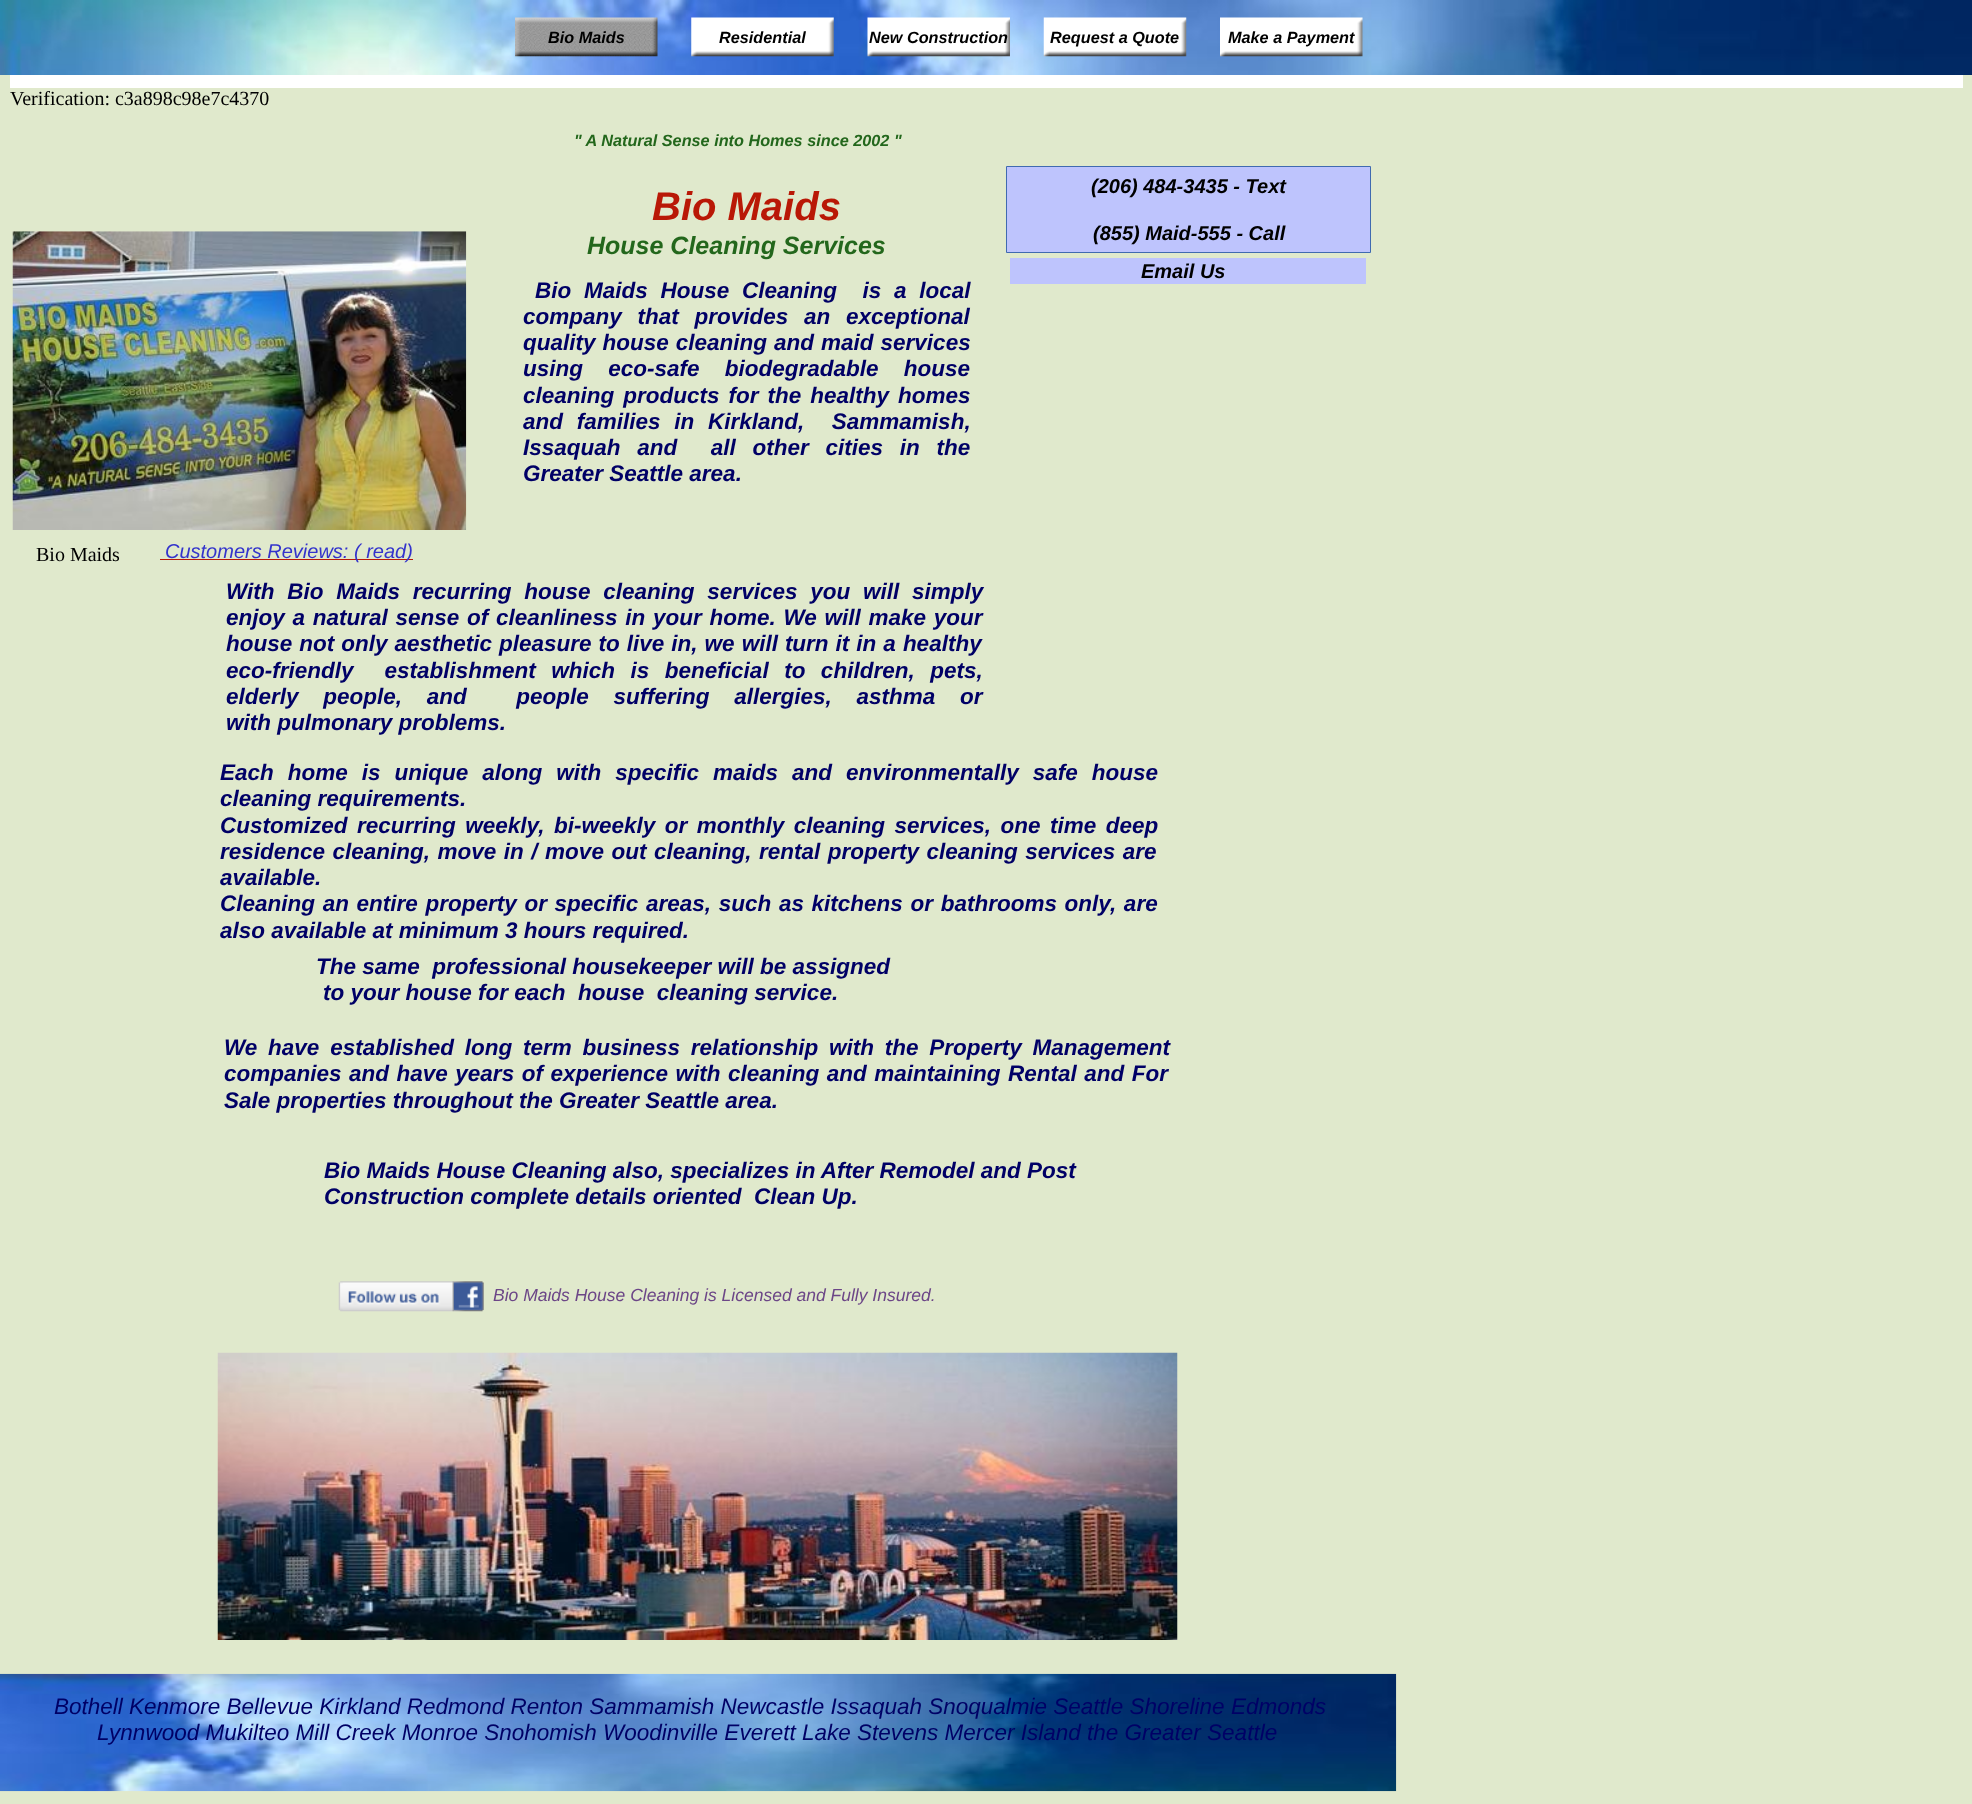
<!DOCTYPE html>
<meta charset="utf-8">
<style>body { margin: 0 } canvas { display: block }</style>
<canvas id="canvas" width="1972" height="1804"></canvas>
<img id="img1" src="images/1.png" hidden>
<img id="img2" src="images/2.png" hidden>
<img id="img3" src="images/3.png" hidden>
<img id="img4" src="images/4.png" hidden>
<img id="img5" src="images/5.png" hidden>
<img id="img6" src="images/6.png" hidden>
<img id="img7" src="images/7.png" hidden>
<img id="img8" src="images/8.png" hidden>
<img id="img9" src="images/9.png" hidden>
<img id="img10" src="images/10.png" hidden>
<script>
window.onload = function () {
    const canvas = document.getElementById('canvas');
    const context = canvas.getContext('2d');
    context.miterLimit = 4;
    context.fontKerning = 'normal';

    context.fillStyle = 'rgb(224, 233, 204)';
    context.fillRect(0, 0, 1972, 1804);
    context.drawImage(document.getElementById('img1'), 0, 0, 1972, 75);
    context.drawImage(document.getElementById('img2'), 515, 17, 143, 40);
    context.drawImage(document.getElementById('img3'), 691, 17, 143, 40);
    context.drawImage(document.getElementById('img4'), 867, 17, 143, 40);
    context.drawImage(document.getElementById('img5'), 1043, 17, 144, 40);
    context.drawImage(document.getElementById('img6'), 1220, 17, 143, 40);
    context.fillStyle = 'rgb(190, 196, 253)';
    context.beginPath();
    context.rect(1006.5, 166.5, 364, 86);
    context.fill();
    context.strokeStyle = 'rgb(64, 106, 176)';
    context.stroke();
    context.drawImage(document.getElementById('img7'), 12, 231, 455, 299);
    context.fillRect(1010, 258, 356, 26);
    context.fillStyle = 'rgb(185, 24, 6)';
    context.fillRect(160, 559, 253, 1);
    context.drawImage(document.getElementById('img8'), 338, 1281, 146, 31);
    context.drawImage(document.getElementById('img9'), 217, 1352, 961, 288);
    context.drawImage(document.getElementById('img10'), 0, 1673, 1397, 119);
    context.fillStyle = 'rgb(255, 255, 255)';
    context.fillRect(10, 75, 1953, 13);
    context.font = 'italic bold 16.25px Liberation Sans';
    context.fillStyle = 'rgb(0, 0, 0)';
    context.fillText('Bio Maids', 548, 43);
    context.fillText('Residential', 719, 43);
    context.fillText('New Construction', 869, 43);
    context.fillText('Request a Quote', 1050, 43);
    context.fillText('Make a Payment', 1228, 43);
    context.fillStyle = 'rgb(35, 103, 28)';
    context.fillText('" A Natural Sense into Homes since 2002 "', 574, 146);
    context.font = 'italic bold 40px Liberation Sans';
    context.fillStyle = 'rgb(185, 24, 6)';
    context.fillText('Bio Maids', 652, 220);
    context.font = 'italic bold 20px Liberation Sans';
    context.fillStyle = 'rgb(0, 0, 0)';
    context.fillText('(206) 484-3435 - Text', 1091, 193);
    context.fillText('(855) Maid-555 - Call', 1093, 240);
    context.font = 'italic bold 25px Liberation Sans';
    context.fillStyle = 'rgb(35, 103, 28)';
    context.fillText('House Cleaning Services', 587, 254);
    context.font = 'italic bold 20px Liberation Sans';
    context.fillStyle = 'rgb(0, 0, 0)';
    context.fillText('Email Us', 1141, 278);
    context.wordSpacing = '6.5px';
    context.font = 'italic bold 22.5px Liberation Sans';
    context.fillStyle = 'rgb(0, 0, 102)';
    context.fillText('Bio Maids House Cleaning  is a local', 535, 298);
    context.wordSpacing = '9.5px';
    context.fillText('company that provides an exceptional', 523, 324);
    context.wordSpacing = '0.75px';
    context.fillText('quality house cleaning and maid services', 523, 350);
    context.wordSpacing = '19px';
    context.fillText('using eco-safe biodegradable house', 523, 376);
    context.wordSpacing = '2.75px';
    context.fillText('cleaning products for the healthy homes', 523, 403);
    context.wordSpacing = '7.5px';
    context.fillText('and families in Kirkland,  Sammamish,', 523, 429);
    context.wordSpacing = '10.5px';
    context.fillText('Issaquah and  all other cities in the', 523, 455);
    context.wordSpacing = '0px';
    context.fillText('Greater Seattle area.', 523, 481);
    context.font = '20px Liberation Serif';
    context.fillStyle = 'rgb(0, 0, 0)';
    context.fillText('Bio Maids', 36, 561);
    context.font = 'italic 20px Liberation Sans';
    context.fillStyle = 'rgb(51, 51, 204)';
    context.fillText('Customers Reviews: ( read)', 165, 558);
    context.wordSpacing = '6.5px';
    context.font = 'italic bold 22.5px Liberation Sans';
    context.fillStyle = 'rgb(0, 0, 102)';
    context.fillText('With Bio Maids recurring house cleaning services you will simply', 226, 599);
    context.wordSpacing = '1.5px';
    context.fillText('enjoy a natural sense of cleanliness in your home. We will make your', 226, 625);
    context.wordSpacing = '0.75px';
    context.fillText('house not only aesthetic pleasure to live in, we will turn it in a healthy', 226, 651);
    context.wordSpacing = '9.25px';
    context.fillText('eco-friendly  establishment which is beneficial to children, pets,', 226, 678);
    context.wordSpacing = '18.5px';
    context.fillText('elderly people, and  people suffering allergies, asthma or', 226, 704);
    context.wordSpacing = '0px';
    context.fillText('with pulmonary problems.', 226, 730);
    context.wordSpacing = '7.75px';
    context.fillText('Each home is unique along with specific maids and environmentally safe house', 220, 780);
    context.wordSpacing = '0px';
    context.fillText('cleaning requirements.', 220, 806);
    context.wordSpacing = '3.25px';
    context.fillText('Customized recurring weekly, bi-weekly or monthly cleaning services, one time deep', 220, 833);
    context.wordSpacing = '1.25px';
    context.fillText('residence cleaning, move in / move out cleaning, rental property cleaning services are', 220, 859);
    context.wordSpacing = '0px';
    context.fillText('available.', 220, 885);
    context.wordSpacing = '1.4px';
    context.fillText('Cleaning an entire property or specific areas, such as kitchens or bathrooms only, are', 220, 911);
    context.wordSpacing = '0px';
    context.fillText('also available at minimum 3 hours required.', 220, 938);
    context.fillText('The same  professional housekeeper will be assigned', 316, 974);
    context.fillText('to your house for each  house  cleaning service.', 323, 1000);
    context.wordSpacing = '4.5px';
    context.fillText('We have established long term business relationship with the Property Management', 224, 1055);
    context.wordSpacing = '1.25px';
    context.fillText('companies and have years of experience with cleaning and maintaining Rental and For', 224, 1081);
    context.wordSpacing = '0px';
    context.fillText('Sale properties throughout the Greater Seattle area.', 224, 1108);
    context.fillText('Bio Maids House Cleaning also, specializes in After Remodel and Post', 324, 1178);
    context.fillText('Construction complete details oriented  Clean Up.', 324, 1204);
    context.font = 'italic 17.5px Liberation Sans';
    context.fillStyle = 'rgb(108, 70, 135)';
    context.fillText('Bio Maids House Cleaning is Licensed and Fully Insured.', 493, 1301);
    context.font = 'italic 22.5px Liberation Sans';
    context.fillStyle = 'rgb(0, 0, 102)';
    context.fillText('Bothell Kenmore Bellevue Kirkland Redmond Renton Sammamish Newcastle Issaquah Snoqualmie Seattle Shoreline Edmonds', 54, 1714);
    context.fillText('Lynnwood Mukilteo Mill Creek Monroe Snohomish Woodinville Everett Lake Stevens Mercer Island the Greater Seattle', 97, 1740);
    context.font = '20px Liberation Serif';
    context.fillStyle = 'rgb(0, 0, 0)';
    context.fillText('Verification: c3a898c98e7c4370', 10, 105);
};
</script>
